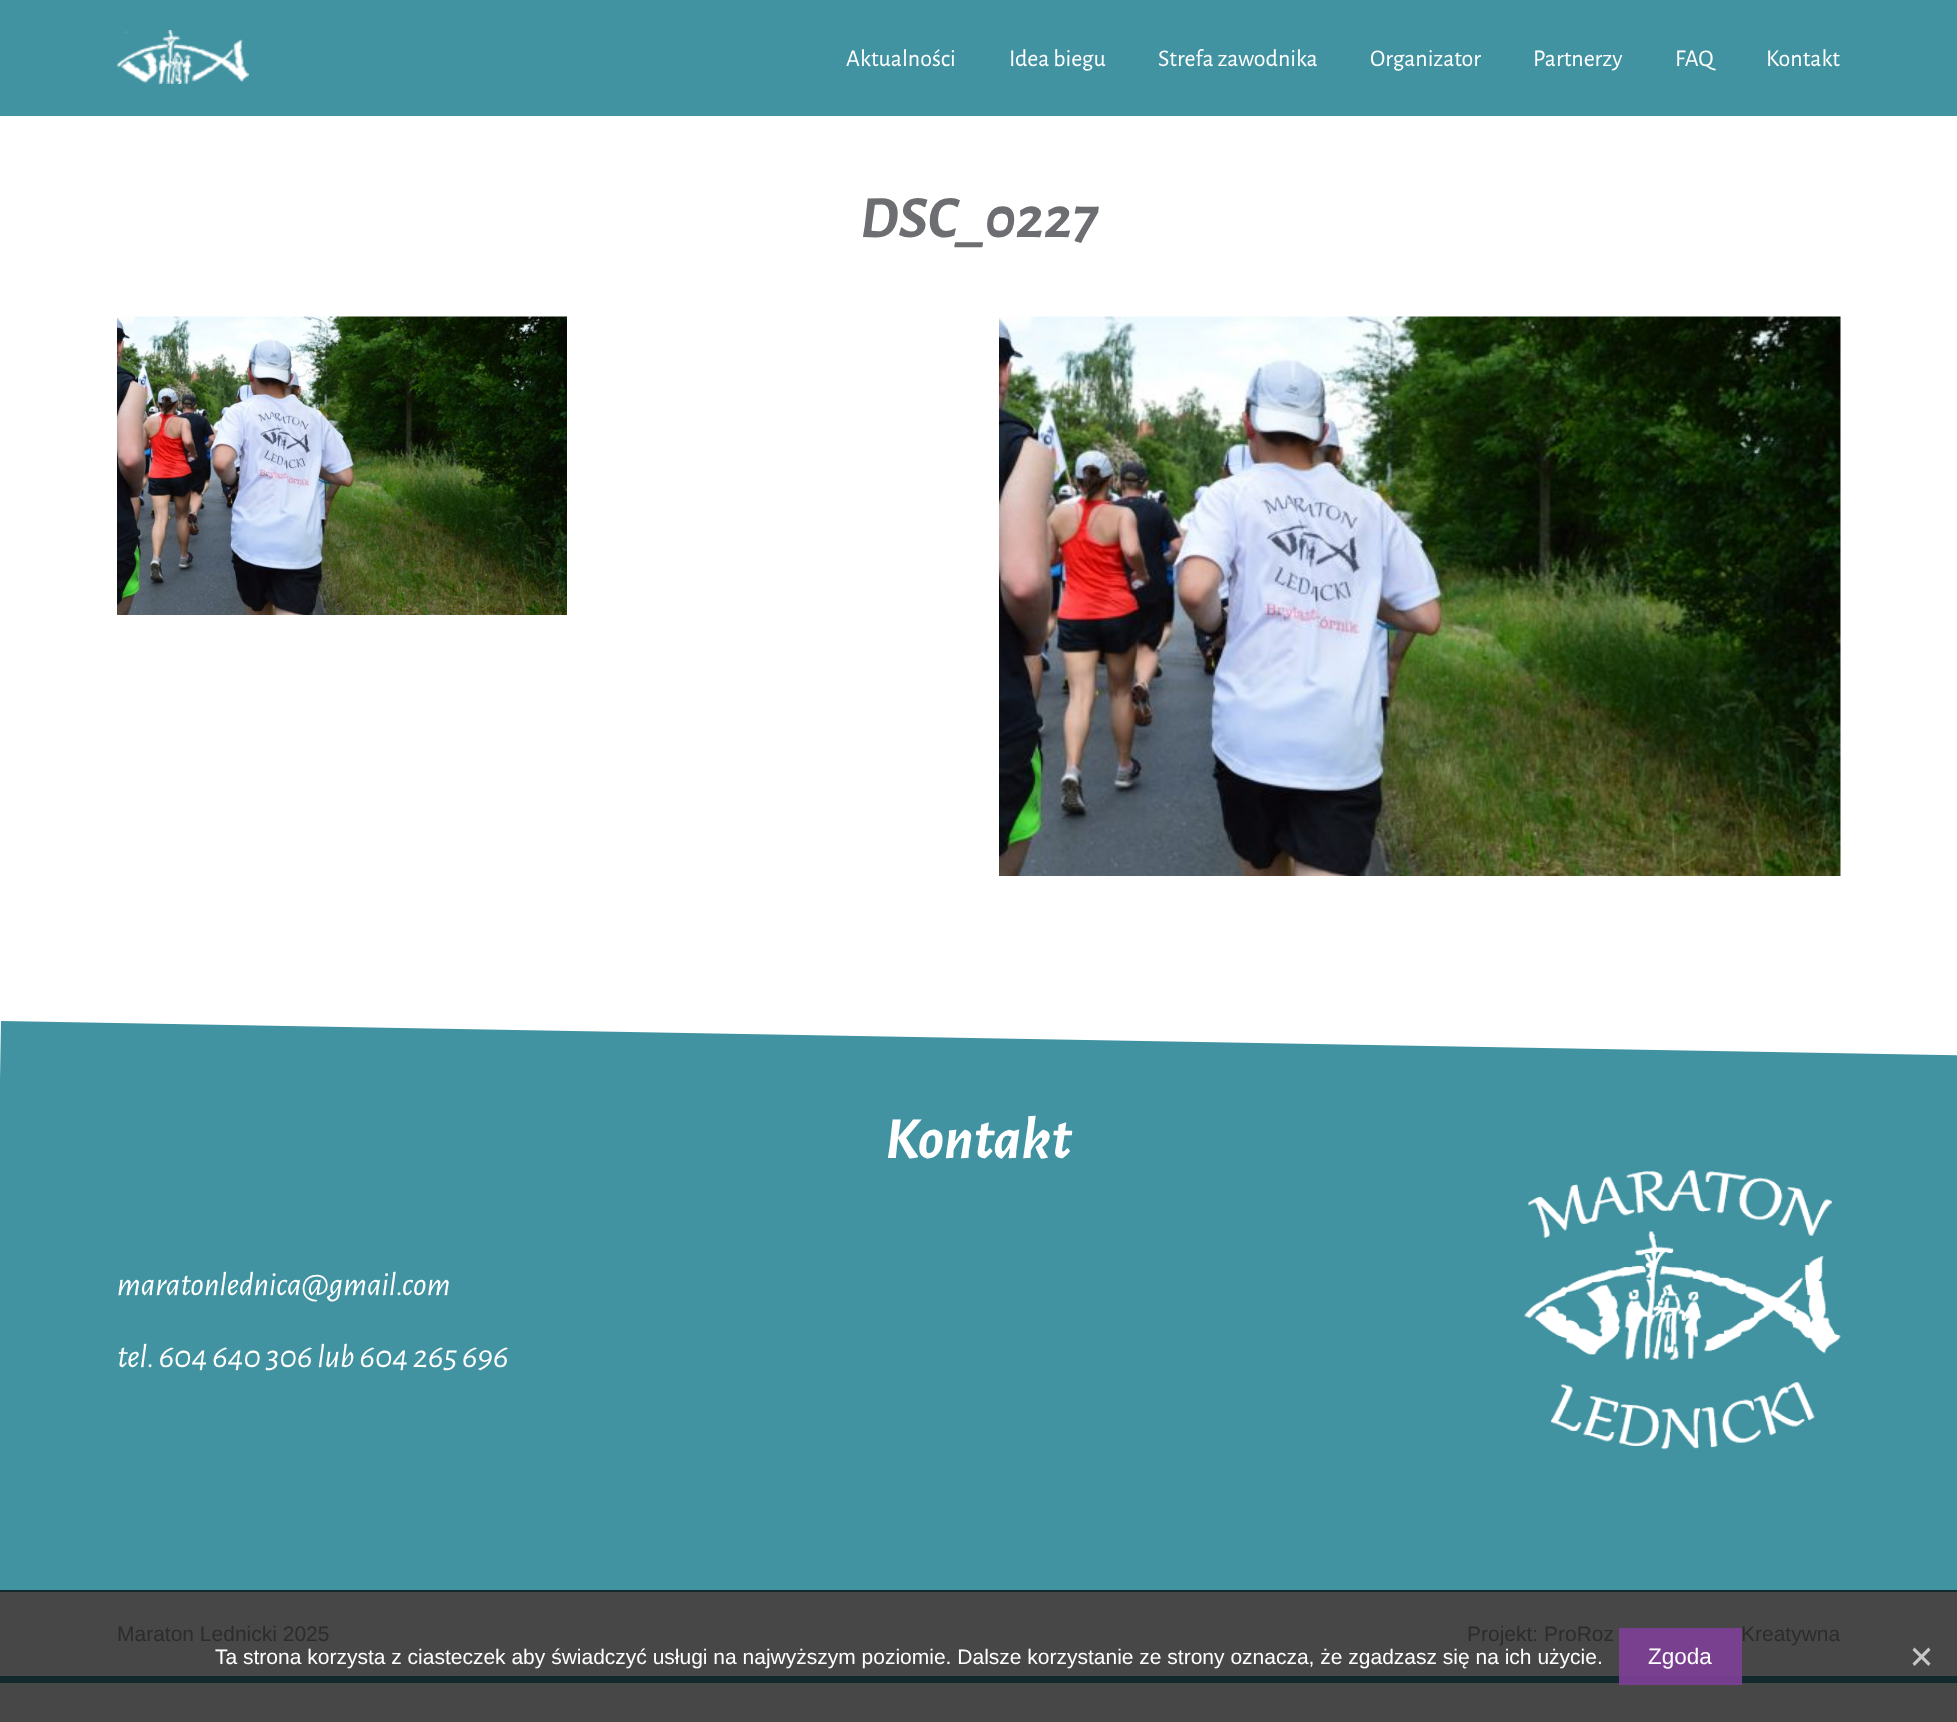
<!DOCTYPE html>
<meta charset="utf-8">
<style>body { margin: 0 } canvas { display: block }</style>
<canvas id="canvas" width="1957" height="1722"></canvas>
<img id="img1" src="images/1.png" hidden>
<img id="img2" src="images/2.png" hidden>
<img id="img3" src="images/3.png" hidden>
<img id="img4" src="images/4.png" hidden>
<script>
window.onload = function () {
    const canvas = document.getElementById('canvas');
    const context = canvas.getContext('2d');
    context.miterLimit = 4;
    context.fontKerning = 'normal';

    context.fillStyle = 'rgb(255, 255, 255)';
    context.fillRect(0, 0, 1957, 1722);
    context.fillStyle = 'rgb(71, 71, 71)';
    context.fillRect(0, 1592, 1957, 130);
    context.fillStyle = 'rgb(65, 147, 161)';
    context.fillRect(0, 0, 1957, 116);
    context.drawImage(document.getElementById('img1'), 117, 30, 132, 54);
    context.drawImage(document.getElementById('img2'), 117, 316, 450, 299);
    context.drawImage(document.getElementById('img3'), 999, 316, 842, 560);
    context.fillRect(0, 1140, 1957, 450);
    context.beginPath();
    context.moveTo(1, 1021);
    context.lineTo(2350, 1062);
    context.lineTo(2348, 1181);
    context.lineTo(-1, 1140);
    context.closePath();
    context.fill();
    context.drawImage(document.getElementById('img4'), 1524, 1170, 317, 280);
    context.fillStyle = 'rgb(18, 41, 45)';
    context.fillRect(0, 1590, 1957, 2);
    context.fillRect(0, 1676, 1957, 7);
    context.fillStyle = 'rgba(127, 63, 152, 0.9)';
    context.fillRect(1619, 1628, 123, 57);
    context.fillStyle = 'rgb(198, 198, 198)';
    context.beginPath();
    context.moveTo(1928.5, 1647.5);
    context.lineTo(1930.5, 1650);
    context.lineTo(1914.5, 1666);
    context.lineTo(1912.5, 1663.5);
    context.closePath();
    context.fill();
    context.beginPath();
    context.moveTo(1912.5, 1650);
    context.lineTo(1914.5, 1647.5);
    context.lineTo(1930.5, 1663.5);
    context.lineTo(1928.5, 1666);
    context.closePath();
    context.fill();
    context.font = '24px Alegreya Sans';
    context.fillStyle = 'rgb(255, 255, 255)';
    context.fillText('Aktualności', 846, 66);
    context.fillText('Idea biegu', 1009, 66);
    context.fillText('Strefa zawodnika', 1158, 66);
    context.fillText('Organizator', 1370, 66);
    context.fillText('Partnerzy', 1533, 66);
    context.fillText('FAQ', 1675, 66);
    context.fillText('Kontakt', 1766, 66);
    context.font = 'italic bold 60px Alegreya Sans';
    context.fillStyle = 'rgb(109, 110, 113)';
    context.fillText('DSC_0227', 860, 237);
    context.fillStyle = 'rgb(255, 255, 255)';
    context.fillText('Kontakt', 885, 1158);
    context.font = 'italic 33px Alegreya Sans';
    context.fillText('maratonlednica@gmail.com', 117, 1295);
    context.fillText('tel. 604 640 306 lub 604 265 696', 117, 1367);
    context.font = '21px Liberation Sans';
    context.fillStyle = 'rgb(44, 44, 44)';
    context.fillText('Maraton Lednicki 2025', 117, 1641);
    context.fillText('Projekt: ProRoz', 1467, 1641);
    context.fillText('Kreatywna', 1741, 1641);
    context.fillStyle = 'rgb(255, 255, 255)';
    context.fillText('Ta strona korzysta z ciasteczek aby świadczyć usługi na najwyższym poziomie. Dalsze korzystanie ze strony oznacza, że zgadzasz się na ich użycie.', 215, 1664);
    context.font = '22.5px Liberation Sans';
    context.fillText('Zgoda', 1648, 1664);
};
</script>
